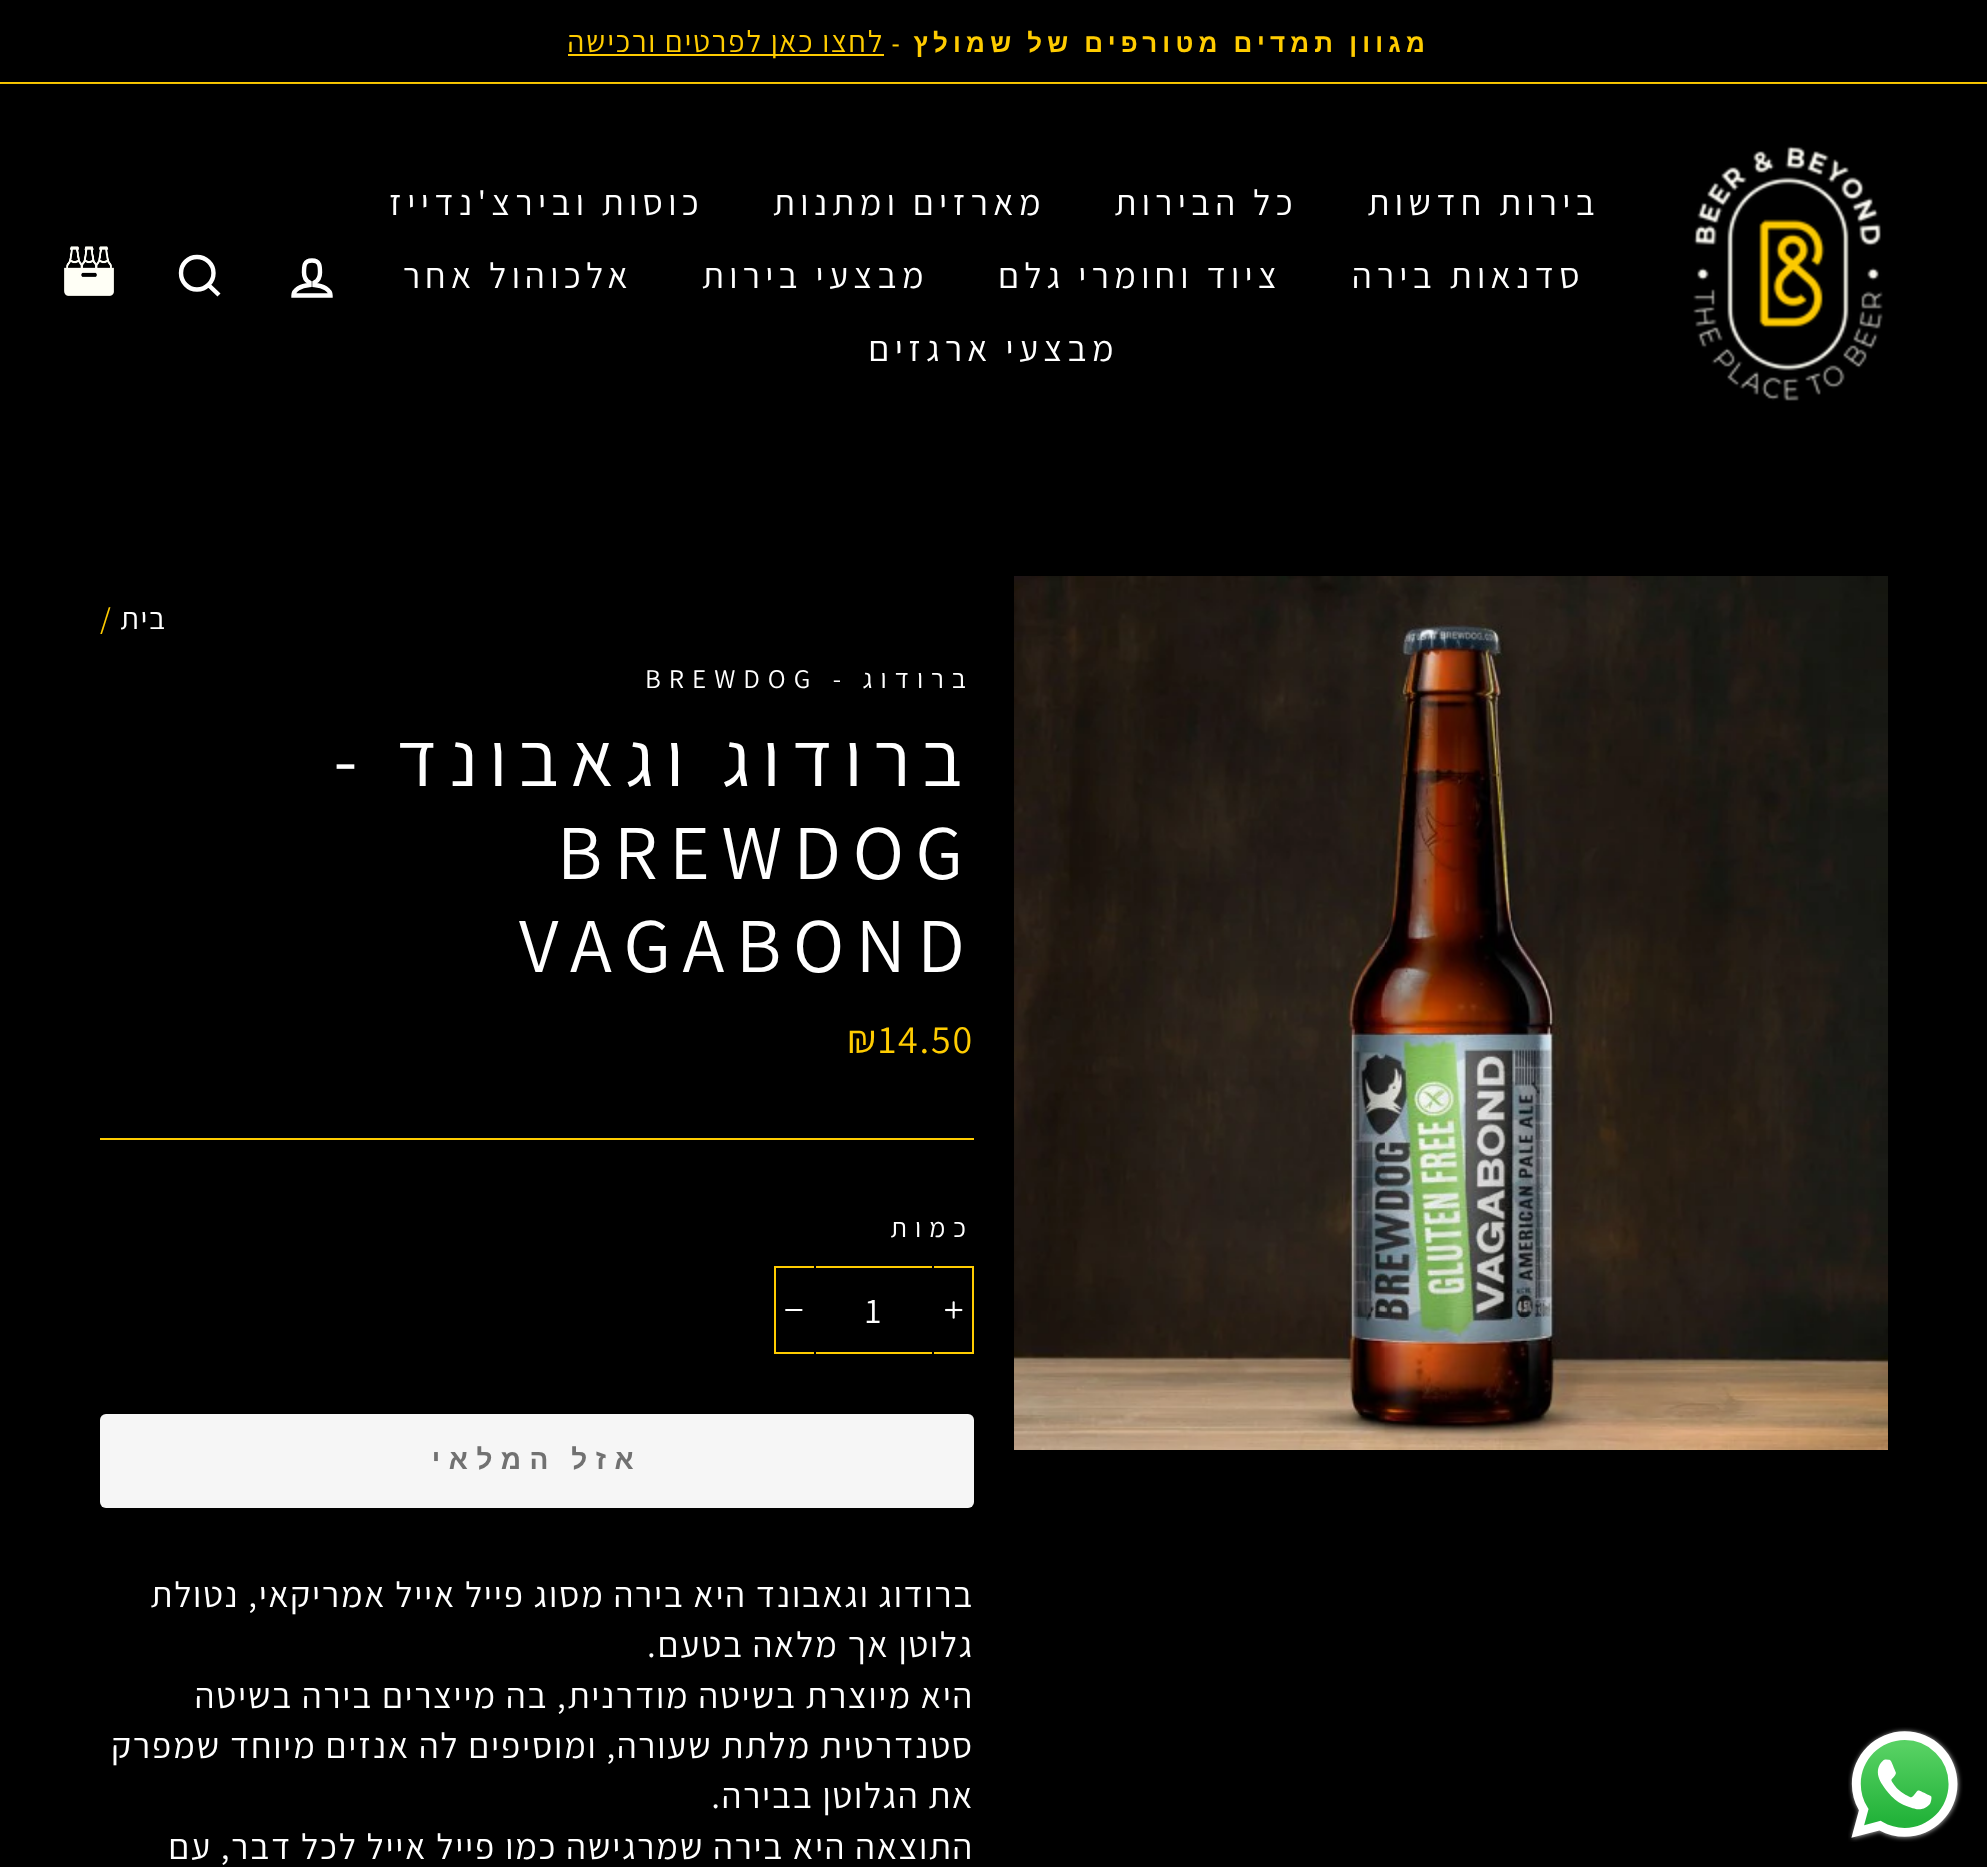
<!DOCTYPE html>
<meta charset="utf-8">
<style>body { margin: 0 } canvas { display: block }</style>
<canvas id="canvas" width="1987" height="1867"></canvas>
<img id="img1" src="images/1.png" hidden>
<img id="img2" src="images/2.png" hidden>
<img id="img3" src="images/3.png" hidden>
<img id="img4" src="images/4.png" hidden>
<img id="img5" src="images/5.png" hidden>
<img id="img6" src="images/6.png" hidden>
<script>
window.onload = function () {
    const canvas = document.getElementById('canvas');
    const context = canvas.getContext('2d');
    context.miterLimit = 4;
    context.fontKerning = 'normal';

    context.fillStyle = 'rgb(0, 0, 0)';
    context.fillRect(0, 0, 1987, 1867);
    context.drawImage(document.getElementById('img1'), 1848, 1727, 115, 115);
    context.fillStyle = 'rgb(255, 204, 0)';
    context.fillRect(0, 82, 1987, 2);
    context.fillRect(568, 54, 316, 2);
    context.save();
    context.beginPath();
    context.moveTo(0, 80);
    context.lineTo(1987, 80);
    context.lineTo(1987, 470);
    context.lineTo(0, 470);
    context.closePath();
    context.moveTo(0, 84);
    context.lineTo(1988, 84);
    context.lineTo(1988, 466);
    context.lineTo(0, 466);
    context.closePath();
    context.clip('evenodd');
    context.fillStyle = 'rgba(0, 0, 0, 0.2)';
    context.filter = 'blur(1px)';
    context.beginPath();
    context.rect(0, 84, 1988, 382);
    context.fill();
    context.filter = 'none';
    context.restore();
    context.drawImage(document.getElementById('img2'), 1693, 146, 190, 255);
    context.beginPath();
    context.moveTo(314.5, 285);
    context.lineTo(314.5, 282.5);
    context.bezierCurveTo(317.5, 281, 320, 277, 320, 272.5);
    context.bezierCurveTo(320, 266, 320, 260.5, 312, 260.5);
    context.bezierCurveTo(304, 260.5, 304, 266, 304, 272.5);
    context.bezierCurveTo(304, 277, 306.5, 281, 309.5, 282.5);
    context.lineTo(309.5, 285);
    context.bezierCurveTo(300.5, 285.5, 293.5, 290, 293.5, 295.5);
    context.lineTo(330.5, 295.5);
    context.bezierCurveTo(330.5, 290, 323.5, 285.5, 314.5, 285);
    context.closePath();
    context.strokeStyle = 'rgb(255, 255, 255)';
    context.lineWidth = 4.4;
    context.stroke();
    context.beginPath();
    context.moveTo(213.5, 273);
    context.bezierCurveTo(213.5, 282, 206, 289.5, 197, 289.5);
    context.bezierCurveTo(188, 289.5, 181, 282, 181, 273);
    context.bezierCurveTo(181, 264, 188, 257, 197, 257);
    context.bezierCurveTo(206, 257, 213.5, 264, 213.5, 273);
    context.closePath();
    context.moveTo(219, 295);
    context.lineTo(208.5, 285);
    context.stroke();
    context.drawImage(document.getElementById('img3'), 64, 246, 50, 50);
    context.drawImage(document.getElementById('img4'), 1014, 576, 874, 874);
    context.fillRect(100, 1138, 874, 2);
    context.strokeStyle = 'rgb(255, 204, 0)';
    context.lineWidth = 2;
    context.strokeRect(775, 1267, 198, 86);
    context.fillStyle = 'rgb(0, 0, 0)';
    context.fillRect(932, 1266, 2, 88);
    context.drawImage(document.getElementById('img5'), 945, 1301, 18, 18);
    context.fillRect(814, 1266, 2, 88);
    context.drawImage(document.getElementById('img6'), 785, 1309, 18, 2);
    context.fillStyle = 'rgb(246, 246, 246)';
    context.beginPath();
    context.roundRect(100, 1414, 874, 94, 6);
    context.fill();
    context.letterSpacing = '5.2px';
    context.wordSpacing = '-1.5px';
    context.direction = 'rtl';
    context.font = 'bold 26px Liberation Sans';
    context.fillStyle = 'rgb(255, 204, 0)';
    context.fillText('מגוון תמדים מטורפים של שמולץ', 1430, 52);
    context.wordSpacing = '0px';
    context.font = '600 26px Assistant';
    context.fillText('-', 905, 52);
    context.letterSpacing = '1.8px';
    context.font = '200 30.6px Assistant';
    context.fillText('לחצו כאן לפרטים ורכישה', 884, 52);
    context.letterSpacing = '5.4px';
    context.font = '200 36px Assistant';
    context.fillStyle = 'rgb(255, 255, 255)';
    context.fillText('בירות חדשות', 1600, 215);
    context.fillText('כל הבירות', 1298, 215);
    context.fillText('מארזים ומתנות', 1046, 215);
    context.fillText('כוסות ובירצ\'נדייז', 704, 215);
    context.fillText('סדנאות בירה', 1585, 288);
    context.fillText('ציוד וחומרי גלם', 1282, 288);
    context.fillText('מבצעי בירות', 929, 288);
    context.fillText('אלכוהול אחר', 633, 288);
    context.fillText('מבצעי ארגזים', 1119, 361);
    context.letterSpacing = '1.8px';
    context.font = '200 30.6px Assistant';
    context.fillText('בית', 167, 629);
    context.direction = 'ltr';
    context.fillStyle = 'rgb(255, 204, 0)';
    context.fillText('/', 100, 629);
    context.letterSpacing = '8px';
    context.direction = 'rtl';
    context.font = '200 27px Assistant';
    context.fillStyle = 'rgb(255, 255, 255)';
    context.fillText('ברודוג -', 974, 688);
    context.direction = 'ltr';
    context.fillText('BREWDOG', 645, 688);
    context.letterSpacing = '11.6px';
    context.direction = 'rtl';
    context.font = '200 77.5px Assistant';
    context.fillText('ברודוג וגאבונד -', 974, 786);
    context.direction = 'ltr';
    context.fillText('BREWDOG', 557, 879);
    context.fillText('VAGABOND', 519, 972);
    context.letterSpacing = '1.8px';
    context.font = '200 40px Assistant';
    context.fillStyle = 'rgb(255, 204, 0)';
    context.fillText('₪14.50', 847, 1053);
    context.letterSpacing = '8px';
    context.direction = 'rtl';
    context.font = '200 27px Assistant';
    context.fillStyle = 'rgb(255, 255, 255)';
    context.fillText('כמות', 974, 1237);
    context.letterSpacing = '1.8px';
    context.direction = 'ltr';
    context.font = '200 36px Assistant';
    context.fillText('1', 865, 1323);
    context.letterSpacing = '8.5px';
    context.wordSpacing = '-2px';
    context.direction = 'rtl';
    context.font = 'bold 28px Liberation Sans';
    context.fillStyle = 'rgb(113, 113, 113)';
    context.fillText('אזל המלאי', 642, 1469);
    context.letterSpacing = '1.8px';
    context.wordSpacing = '0px';
    context.font = '200 36px Assistant';
    context.fillStyle = 'rgb(255, 255, 255)';
    context.fillText('ברודוג וגאבונד היא בירה מסוג פייל אייל אמריקאי, נטולת', 974, 1607);
    context.fillText('גלוטן אך מלאה בטעם.', 974, 1657);
    context.fillText('היא מיוצרת בשיטה מודרנית, בה מייצרים בירה בשיטה', 974, 1708);
    context.fillText('סטנדרטית מלתת שעורה, ומוסיפים לה אנזים מיוחד שמפרק', 974, 1758);
    context.fillText('את הגלוטן בבירה.', 974, 1808);
    context.fillText('התוצאה היא בירה שמרגישה כמו פייל אייל לכל דבר, עם', 974, 1859);
};
</script>
